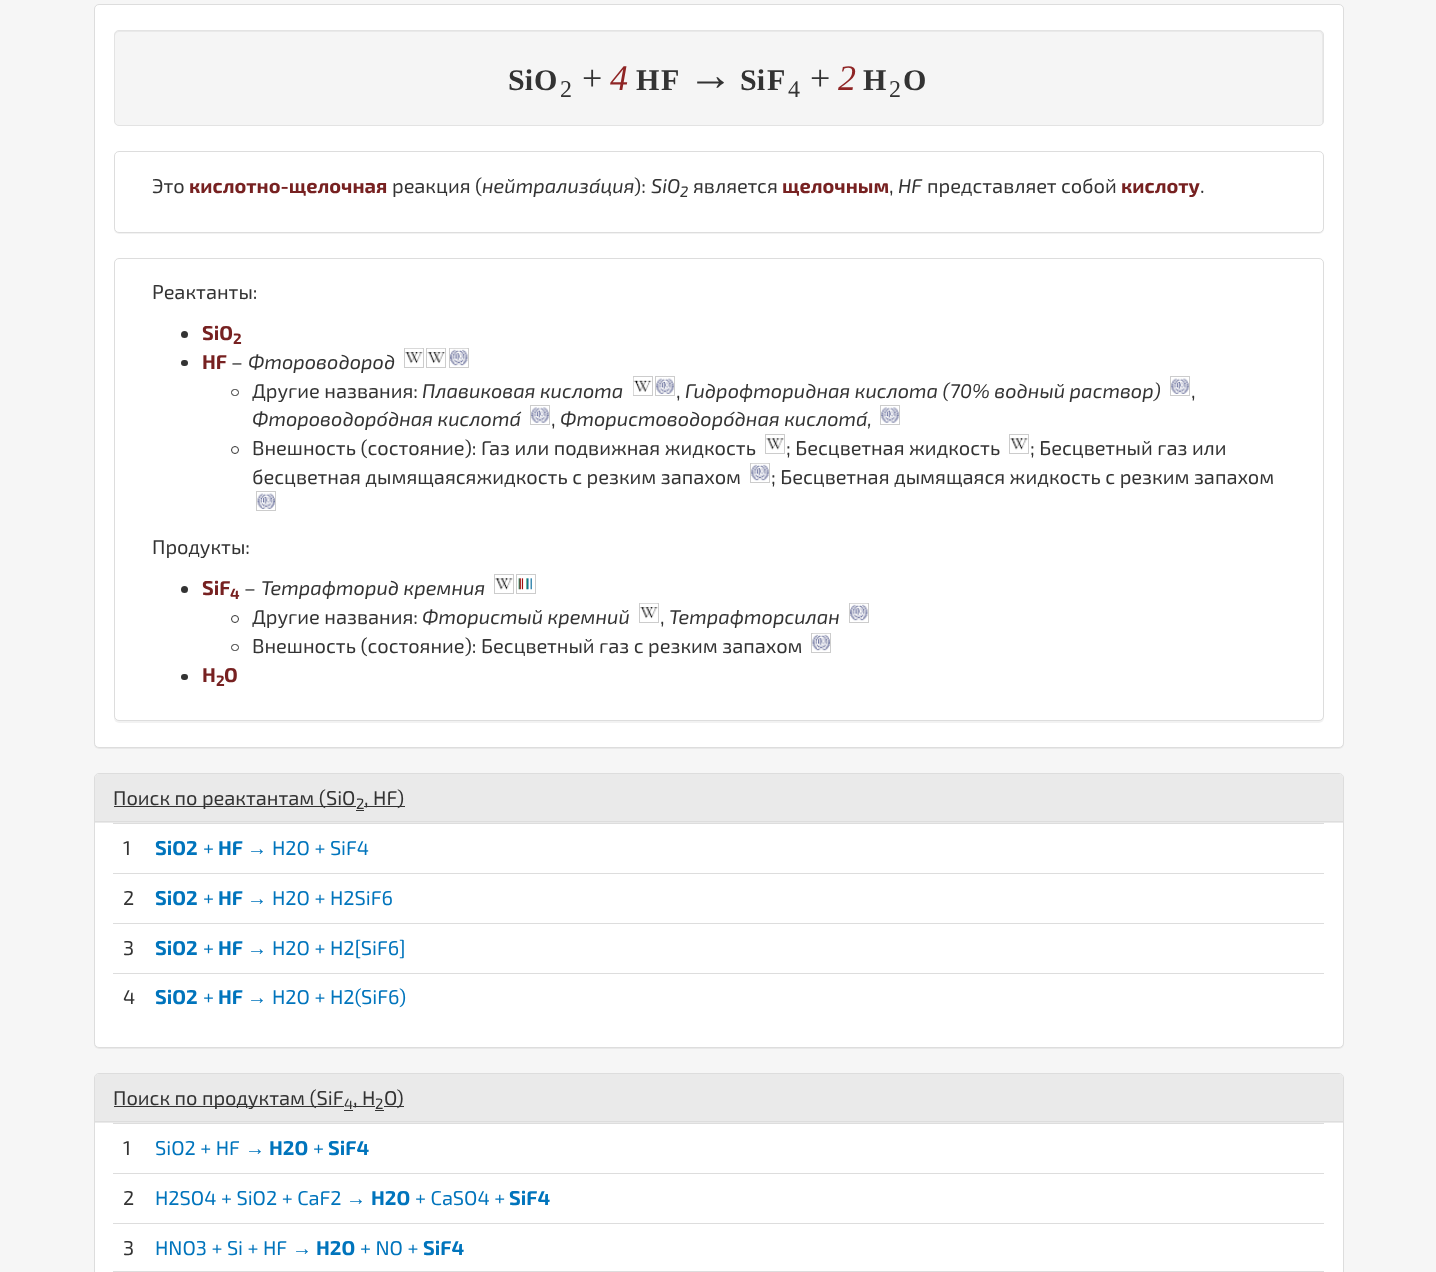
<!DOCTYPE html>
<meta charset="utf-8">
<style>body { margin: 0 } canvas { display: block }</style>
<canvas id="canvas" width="1436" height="1272"></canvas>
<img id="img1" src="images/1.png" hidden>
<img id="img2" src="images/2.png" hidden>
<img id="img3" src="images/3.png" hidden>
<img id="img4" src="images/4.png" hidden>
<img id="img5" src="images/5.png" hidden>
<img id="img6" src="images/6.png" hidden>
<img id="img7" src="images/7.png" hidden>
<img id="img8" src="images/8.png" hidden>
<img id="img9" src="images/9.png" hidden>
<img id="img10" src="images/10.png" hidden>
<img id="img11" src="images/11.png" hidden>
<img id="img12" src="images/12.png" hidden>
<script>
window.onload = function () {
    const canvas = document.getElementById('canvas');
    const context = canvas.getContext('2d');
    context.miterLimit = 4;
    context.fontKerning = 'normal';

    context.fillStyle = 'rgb(246, 246, 246)';
    context.fillRect(0, 0, 1436, 1272);
    context.fillStyle = 'rgba(0, 0, 0, 0.05)';
    context.filter = 'blur(0.5px)';
    context.beginPath();
    context.roundRect(94, 5, 1250, 744, 5);
    context.fill();
    context.filter = 'none';
    context.fillStyle = 'rgb(255, 255, 255)';
    context.beginPath();
    context.roundRect(94.5, 4.5, 1249, 743, 4.5);
    context.fill();
    context.strokeStyle = 'rgb(221, 221, 221)';
    context.stroke();
    context.fillStyle = 'rgb(245, 245, 245)';
    context.beginPath();
    context.roundRect(114, 30, 1210, 96, 5);
    context.fill();
    context.fillStyle = 'rgb(233, 233, 233)';
    context.beginPath();
    context.moveTo(119, 32);
    context.lineTo(1319, 32);
    context.bezierCurveTo(1321, 32, 1322, 34, 1322, 36);
    context.lineTo(1322, 124);
    context.bezierCurveTo(1323, 123, 1323, 122, 1323, 121);
    context.lineTo(1323, 35);
    context.bezierCurveTo(1323, 33, 1321, 31, 1319, 31);
    context.lineTo(119, 31);
    context.bezierCurveTo(117, 31, 115, 33, 115, 35);
    context.lineTo(115, 36);
    context.bezierCurveTo(115, 34, 117, 32, 119, 32);
    context.closePath();
    context.fill();
    context.beginPath();
    context.roundRect(114.5, 30.5, 1209, 95, 4.5);
    context.strokeStyle = 'rgb(227, 227, 227)';
    context.stroke();
    context.fillStyle = 'rgba(0, 0, 0, 0.05)';
    context.filter = 'blur(0.5px)';
    context.beginPath();
    context.roundRect(114, 153, 1210, 81, 5);
    context.fill();
    context.filter = 'none';
    context.fillStyle = 'rgb(255, 255, 255)';
    context.beginPath();
    context.roundRect(114.5, 151.5, 1209, 81, 4.5);
    context.fill();
    context.strokeStyle = 'rgb(221, 221, 221)';
    context.stroke();
    context.fillStyle = 'rgba(0, 0, 0, 0.05)';
    context.filter = 'blur(0.5px)';
    context.beginPath();
    context.roundRect(114, 259, 1210, 464, 5);
    context.fill();
    context.filter = 'none';
    context.fillStyle = 'rgb(255, 255, 255)';
    context.beginPath();
    context.roundRect(114.5, 258.5, 1209, 462, 4.5);
    context.fill();
    context.stroke();
    context.fillStyle = 'rgb(51, 51, 51)';
    context.beginPath();
    context.arc(184.5, 334.5, 3.5, 0, 2 * Math.PI);
    context.fill();
    context.strokeStyle = 'rgb(204, 204, 204)';
    context.strokeRect(404.5, 348.5, 19, 19);
    context.drawImage(document.getElementById('img1'), 405, 348, 18, 16);
    context.strokeRect(426.5, 348.5, 19, 19);
    context.drawImage(document.getElementById('img2'), 427, 348, 18, 16);
    context.strokeRect(449.5, 348.5, 19, 19);
    context.beginPath();
    context.roundRect(181, 360, 7, 6, 3);
    context.fill();
    context.drawImage(document.getElementById('img3'), 450, 348, 18, 18);
    context.strokeRect(633.5, 376.5, 19, 19);
    context.strokeRect(655.5, 376.5, 19, 19);
    context.strokeRect(1170.5, 376.5, 19, 19);
    context.beginPath();
    context.roundRect(231.5, 389.5, 7, 6, 3);
    context.strokeStyle = 'rgb(51, 51, 51)';
    context.stroke();
    context.drawImage(document.getElementById('img4'), 633, 377, 19, 18);
    context.drawImage(document.getElementById('img5'), 656, 378, 18, 16);
    context.drawImage(document.getElementById('img5'), 1171, 378, 18, 16);
    context.strokeStyle = 'rgb(204, 204, 204)';
    context.strokeRect(530.5, 405.5, 19, 19);
    context.strokeRect(880.5, 405.5, 19, 19);
    context.drawImage(document.getElementById('img6'), 531, 407, 18, 16);
    context.drawImage(document.getElementById('img6'), 881, 407, 18, 16);
    context.strokeRect(765.5, 434.5, 19, 19);
    context.strokeRect(1009.5, 434.5, 19, 19);
    context.beginPath();
    context.arc(235, 450, 3.5, 0, 2 * Math.PI);
    context.strokeStyle = 'rgb(51, 51, 51)';
    context.stroke();
    context.drawImage(document.getElementById('img7'), 766, 438, 18, 12);
    context.drawImage(document.getElementById('img8'), 1010, 438, 18, 12);
    context.strokeStyle = 'rgb(204, 204, 204)';
    context.strokeRect(750.5, 463.5, 19, 19);
    context.drawImage(document.getElementById('img9'), 751, 463, 18, 18);
    context.strokeRect(256.5, 491.5, 19, 19);
    context.drawImage(document.getElementById('img10'), 257, 493, 18, 16);
    context.strokeRect(494.5, 574.5, 19, 19);
    context.strokeRect(516.5, 574.5, 19, 19);
    context.beginPath();
    context.arc(184.5, 589.5, 3.5, 0, 2 * Math.PI);
    context.fill();
    context.drawImage(document.getElementById('img8'), 495, 578, 18, 12);
    context.drawImage(document.getElementById('img11'), 518, 578, 14, 12);
    context.strokeRect(639.5, 603.5, 19, 19);
    context.drawImage(document.getElementById('img1'), 640, 603, 18, 16);
    context.strokeRect(849.5, 603.5, 19, 19);
    context.beginPath();
    context.arc(235, 619, 3.5, 0, 2 * Math.PI);
    context.strokeStyle = 'rgb(51, 51, 51)';
    context.stroke();
    context.drawImage(document.getElementById('img3'), 850, 603, 18, 18);
    context.strokeStyle = 'rgb(204, 204, 204)';
    context.strokeRect(811.5, 633.5, 19, 19);
    context.beginPath();
    context.roundRect(231.5, 644.5, 7, 6, 3);
    context.strokeStyle = 'rgb(51, 51, 51)';
    context.stroke();
    context.drawImage(document.getElementById('img12'), 812, 633, 18, 18);
    context.beginPath();
    context.roundRect(181, 674, 7, 6, 3);
    context.fill();
    context.fillStyle = 'rgba(0, 0, 0, 0.05)';
    context.filter = 'blur(0.5px)';
    context.beginPath();
    context.roundRect(94, 774, 1250, 275, 5);
    context.fill();
    context.filter = 'none';
    context.fillStyle = 'rgb(255, 255, 255)';
    context.beginPath();
    context.roundRect(94.5, 773.5, 1249, 274, 4.5);
    context.fill();
    context.strokeStyle = 'rgb(221, 221, 221)';
    context.stroke();
    context.fillStyle = 'rgb(234, 234, 234)';
    context.beginPath();
    context.roundRect(95, 774, 1248, 49, [4, 4, 0, 0]);
    context.fill();
    context.fillStyle = 'rgb(221, 221, 221)';
    context.fillRect(95, 821, 1248, 1);
    context.fillStyle = 'rgb(51, 51, 51)';
    context.fillRect(114, 806, 242, 1);
    context.fillRect(364, 806, 41, 1);
    context.fillRect(356, 810, 8, 1);
    context.fillStyle = 'rgb(221, 221, 221)';
    context.fillRect(113, 823, 1211, 1);
    context.fillRect(113, 873, 1211, 1);
    context.fillRect(113, 923, 1211, 1);
    context.fillRect(113, 973, 1211, 1);
    context.fillStyle = 'rgb(255, 255, 255)';
    context.beginPath();
    context.roundRect(94.5, 1073.5, 1249, 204, 4.5);
    context.fill();
    context.stroke();
    context.fillStyle = 'rgb(234, 234, 234)';
    context.beginPath();
    context.roundRect(95, 1074, 1248, 49, [4, 4, 0, 0]);
    context.fill();
    context.fillStyle = 'rgb(221, 221, 221)';
    context.fillRect(95, 1121, 1248, 1);
    context.fillStyle = 'rgb(51, 51, 51)';
    context.fillRect(114, 1106, 202, 1);
    context.fillRect(316, 1106, 28, 1);
    context.fillRect(344, 1110, 9, 1);
    context.fillRect(353, 1106, 22, 1);
    context.fillRect(384, 1106, 20, 1);
    context.fillRect(375, 1110, 9, 1);
    context.fillStyle = 'rgb(221, 221, 221)';
    context.fillRect(113, 1123, 1211, 1);
    context.fillRect(113, 1173, 1211, 1);
    context.fillRect(113, 1223, 1211, 1);
    context.fillRect(113, 1271, 1211, 1);
    context.font = 'bold 30px Liberation Serif';
    context.fillStyle = 'rgb(51, 51, 51)';
    context.fillText('Si', 508, 90);
    context.fillText('O', 534, 90);
    context.font = '24px Liberation Serif';
    context.fillText('2', 560, 97);
    context.font = '36px Liberation Serif';
    context.fillText('+', 582, 90);
    context.font = 'italic 36px Liberation Serif';
    context.fillStyle = 'rgb(143, 37, 37)';
    context.fillText('4', 610, 90);
    context.font = 'bold 30px Liberation Serif';
    context.fillStyle = 'rgb(51, 51, 51)';
    context.fillText('H', 636, 90);
    context.fillText('F', 661, 90);
    context.font = '45px Liberation Serif';
    context.fillText('→', 688, 90);
    context.font = 'bold 30px Liberation Serif';
    context.fillText('Si', 740, 90);
    context.fillText('F', 767, 90);
    context.font = '24px Liberation Serif';
    context.fillText('4', 788, 97);
    context.font = '36px Liberation Serif';
    context.fillText('+', 810, 90);
    context.font = 'italic 36px Liberation Serif';
    context.fillStyle = 'rgb(143, 37, 37)';
    context.fillText('2', 838, 90);
    context.font = 'bold 30px Liberation Serif';
    context.fillStyle = 'rgb(51, 51, 51)';
    context.fillText('H', 863, 90);
    context.font = '24px Liberation Serif';
    context.fillText('2', 889, 97);
    context.font = 'bold 30px Liberation Serif';
    context.fillText('O', 903, 90);
    context.font = '20px "Exo 2"';
    context.fillText('Это', 152, 193);
    context.font = 'bold 20px "Exo 2"';
    context.fillStyle = 'rgb(119, 33, 33)';
    context.fillText('кислотно-щелочная', 189, 193);
    context.font = '20px "Exo 2"';
    context.fillStyle = 'rgb(51, 51, 51)';
    context.fillText('реакция (', 392, 193);
    context.font = 'italic 20px "Exo 2"';
    context.fillText('нейтрализа́ция', 482, 193);
    context.font = '20px "Exo 2"';
    context.fillText('):', 634, 193);
    context.font = 'italic 20px "Exo 2"';
    context.fillText('SiO', 651, 193);
    context.font = 'italic 15px "Exo 2"';
    context.fillText('2', 680, 197);
    context.font = '20px "Exo 2"';
    context.fillText('является', 693, 193);
    context.font = 'bold 20px "Exo 2"';
    context.fillStyle = 'rgb(119, 33, 33)';
    context.fillText('щелочным', 782, 193);
    context.font = '20px "Exo 2"';
    context.fillStyle = 'rgb(51, 51, 51)';
    context.fillText(',', 889, 193);
    context.font = 'italic 20px "Exo 2"';
    context.fillText('HF', 898, 193);
    context.font = '20px "Exo 2"';
    context.fillText('представляет собой', 927, 193);
    context.font = 'bold 20px "Exo 2"';
    context.fillStyle = 'rgb(119, 33, 33)';
    context.fillText('кислоту', 1121, 193);
    context.font = '20px "Exo 2"';
    context.fillStyle = 'rgb(51, 51, 51)';
    context.fillText('.', 1200, 193);
    context.fillText('Реактанты:', 152, 299);
    context.font = 'bold 20px "Exo 2"';
    context.fillStyle = 'rgb(119, 33, 33)';
    context.fillText('SiO', 202, 340);
    context.font = 'bold 15px "Exo 2"';
    context.fillText('2', 233, 344);
    context.font = 'bold 20px "Exo 2"';
    context.fillText('HF', 202, 369);
    context.font = '20px "Exo 2"';
    context.fillStyle = 'rgb(51, 51, 51)';
    context.fillText('–', 231, 369);
    context.font = 'italic 20px "Exo 2"';
    context.fillText('Фтороводород', 248, 369);
    context.font = '20px "Exo 2"';
    context.fillText('Другие названия:', 252, 398);
    context.font = 'italic 20px "Exo 2"';
    context.fillText('Плавиковая кислота', 422, 398);
    context.fillText('Гидрофторидная кислота (70% водный раствор)', 685, 398);
    context.font = '20px "Exo 2"';
    context.fillText(',', 676, 398);
    context.fillText(',', 1191, 398);
    context.font = 'italic 20px "Exo 2"';
    context.fillText('Фтороводоро́дная кислота́', 252, 426);
    context.font = '20px "Exo 2"';
    context.fillText(',', 551, 426);
    context.font = 'italic 20px "Exo 2"';
    context.fillText('Фтористоводоро́дная кислота́,', 560, 426);
    context.font = '20px "Exo 2"';
    context.fillText('Внешность (состояние): Газ или подвижная жидкость', 252, 455);
    context.fillText('; Бесцветная жидкость', 786, 455);
    context.fillText('; Бесцветный газ или', 1030, 455);
    context.fillText('бесцветная дымящаясяжидкость с резким запахом', 252, 484);
    context.fillText('; Бесцветная дымящаяся жидкость с резким запахом', 771, 484);
    context.fillText('Продукты:', 152, 554);
    context.font = 'bold 20px "Exo 2"';
    context.fillStyle = 'rgb(119, 33, 33)';
    context.fillText('SiF', 202, 595);
    context.font = 'bold 15px "Exo 2"';
    context.fillText('4', 230, 599);
    context.font = '20px "Exo 2"';
    context.fillStyle = 'rgb(51, 51, 51)';
    context.fillText('–', 244, 595);
    context.font = 'italic 20px "Exo 2"';
    context.fillText('Тетрафторид кремния', 261, 595);
    context.font = '20px "Exo 2"';
    context.fillText('Другие названия:', 252, 624);
    context.font = 'italic 20px "Exo 2"';
    context.fillText('Фтористый кремний', 422, 624);
    context.fillText('Тетрафторсилан', 669, 624);
    context.font = '20px "Exo 2"';
    context.fillText(',', 660, 624);
    context.fillText('Внешность (состояние): Бесцветный газ с резким запахом', 252, 653);
    context.font = 'bold 20px "Exo 2"';
    context.fillStyle = 'rgb(119, 33, 33)';
    context.fillText('H', 202, 682);
    context.font = 'bold 15px "Exo 2"';
    context.fillText('2', 216, 686);
    context.font = 'bold 20px "Exo 2"';
    context.fillText('O', 224, 682);
    context.font = '20px "Exo 2"';
    context.fillStyle = 'rgb(51, 51, 51)';
    context.fillText('Поиск по реактантам (SiO', 113, 805);
    context.font = '15px "Exo 2"';
    context.fillText('2', 356, 809);
    context.font = '20px "Exo 2"';
    context.fillText(', HF)', 364, 805);
    context.fillText('1', 123, 855);
    context.font = 'bold 20px "Exo 2"';
    context.fillStyle = 'rgb(0, 116, 188)';
    context.fillText('SiO2', 155, 855);
    context.font = '20px "Exo 2"';
    context.fillText('+', 203, 855);
    context.font = 'bold 20px "Exo 2"';
    context.fillText('HF', 218, 855);
    context.font = '20px Liberation Sans';
    context.fillText('→', 247, 855);
    context.font = '20px "Exo 2"';
    context.fillText('H2O + SiF4', 272, 855);
    context.fillStyle = 'rgb(51, 51, 51)';
    context.fillText('2', 123, 905);
    context.font = 'bold 20px "Exo 2"';
    context.fillStyle = 'rgb(0, 116, 188)';
    context.fillText('SiO2', 155, 905);
    context.font = '20px "Exo 2"';
    context.fillText('+', 203, 905);
    context.font = 'bold 20px "Exo 2"';
    context.fillText('HF', 218, 905);
    context.font = '20px Liberation Sans';
    context.fillText('→', 247, 905);
    context.font = '20px "Exo 2"';
    context.fillText('H2O + H2SiF6', 272, 905);
    context.fillStyle = 'rgb(51, 51, 51)';
    context.fillText('3', 123, 955);
    context.font = 'bold 20px "Exo 2"';
    context.fillStyle = 'rgb(0, 116, 188)';
    context.fillText('SiO2', 155, 955);
    context.font = '20px "Exo 2"';
    context.fillText('+', 203, 955);
    context.font = 'bold 20px "Exo 2"';
    context.fillText('HF', 218, 955);
    context.font = '20px Liberation Sans';
    context.fillText('→', 247, 955);
    context.font = '20px "Exo 2"';
    context.fillText('H2O + H2[SiF6]', 272, 955);
    context.fillStyle = 'rgb(51, 51, 51)';
    context.fillText('4', 123, 1004);
    context.font = 'bold 20px "Exo 2"';
    context.fillStyle = 'rgb(0, 116, 188)';
    context.fillText('SiO2', 155, 1004);
    context.font = '20px "Exo 2"';
    context.fillText('+', 203, 1004);
    context.font = 'bold 20px "Exo 2"';
    context.fillText('HF', 218, 1004);
    context.font = '20px Liberation Sans';
    context.fillText('→', 247, 1004);
    context.font = '20px "Exo 2"';
    context.fillText('H2O + H2(SiF6)', 272, 1004);
    context.fillStyle = 'rgb(51, 51, 51)';
    context.fillText('Поиск по продуктам (SiF', 113, 1105);
    context.font = '15px "Exo 2"';
    context.fillText('4', 344, 1109);
    context.font = '20px "Exo 2"';
    context.fillText(', H', 353, 1105);
    context.font = '15px "Exo 2"';
    context.fillText('2', 375, 1109);
    context.font = '20px "Exo 2"';
    context.fillText('O)', 384, 1105);
    context.fillText('1', 123, 1155);
    context.fillStyle = 'rgb(0, 116, 188)';
    context.fillText('SiO2 + HF', 155, 1155);
    context.font = '20px Liberation Sans';
    context.fillText('→', 245, 1155);
    context.font = 'bold 20px "Exo 2"';
    context.fillText('H2O', 269, 1155);
    context.font = '20px "Exo 2"';
    context.fillText('+', 313, 1155);
    context.font = 'bold 20px "Exo 2"';
    context.fillText('SiF4', 328, 1155);
    context.font = '20px "Exo 2"';
    context.fillStyle = 'rgb(51, 51, 51)';
    context.fillText('2', 123, 1205);
    context.fillStyle = 'rgb(0, 116, 188)';
    context.fillText('H2SO4 + SiO2 + CaF2', 155, 1205);
    context.font = '20px Liberation Sans';
    context.fillText('→', 346, 1205);
    context.font = 'bold 20px "Exo 2"';
    context.fillText('H2O', 371, 1205);
    context.font = '20px "Exo 2"';
    context.fillText('+ CaSO4 +', 415, 1205);
    context.font = 'bold 20px "Exo 2"';
    context.fillText('SiF4', 509, 1205);
    context.font = '20px "Exo 2"';
    context.fillStyle = 'rgb(51, 51, 51)';
    context.fillText('3', 123, 1255);
    context.fillStyle = 'rgb(0, 116, 188)';
    context.fillText('HNO3 + Si + HF', 155, 1255);
    context.font = '20px Liberation Sans';
    context.fillText('→', 292, 1255);
    context.font = 'bold 20px "Exo 2"';
    context.fillText('H2O', 316, 1255);
    context.font = '20px "Exo 2"';
    context.fillText('+ NO +', 360, 1255);
    context.font = 'bold 20px "Exo 2"';
    context.fillText('SiF4', 423, 1255);
};
</script>
